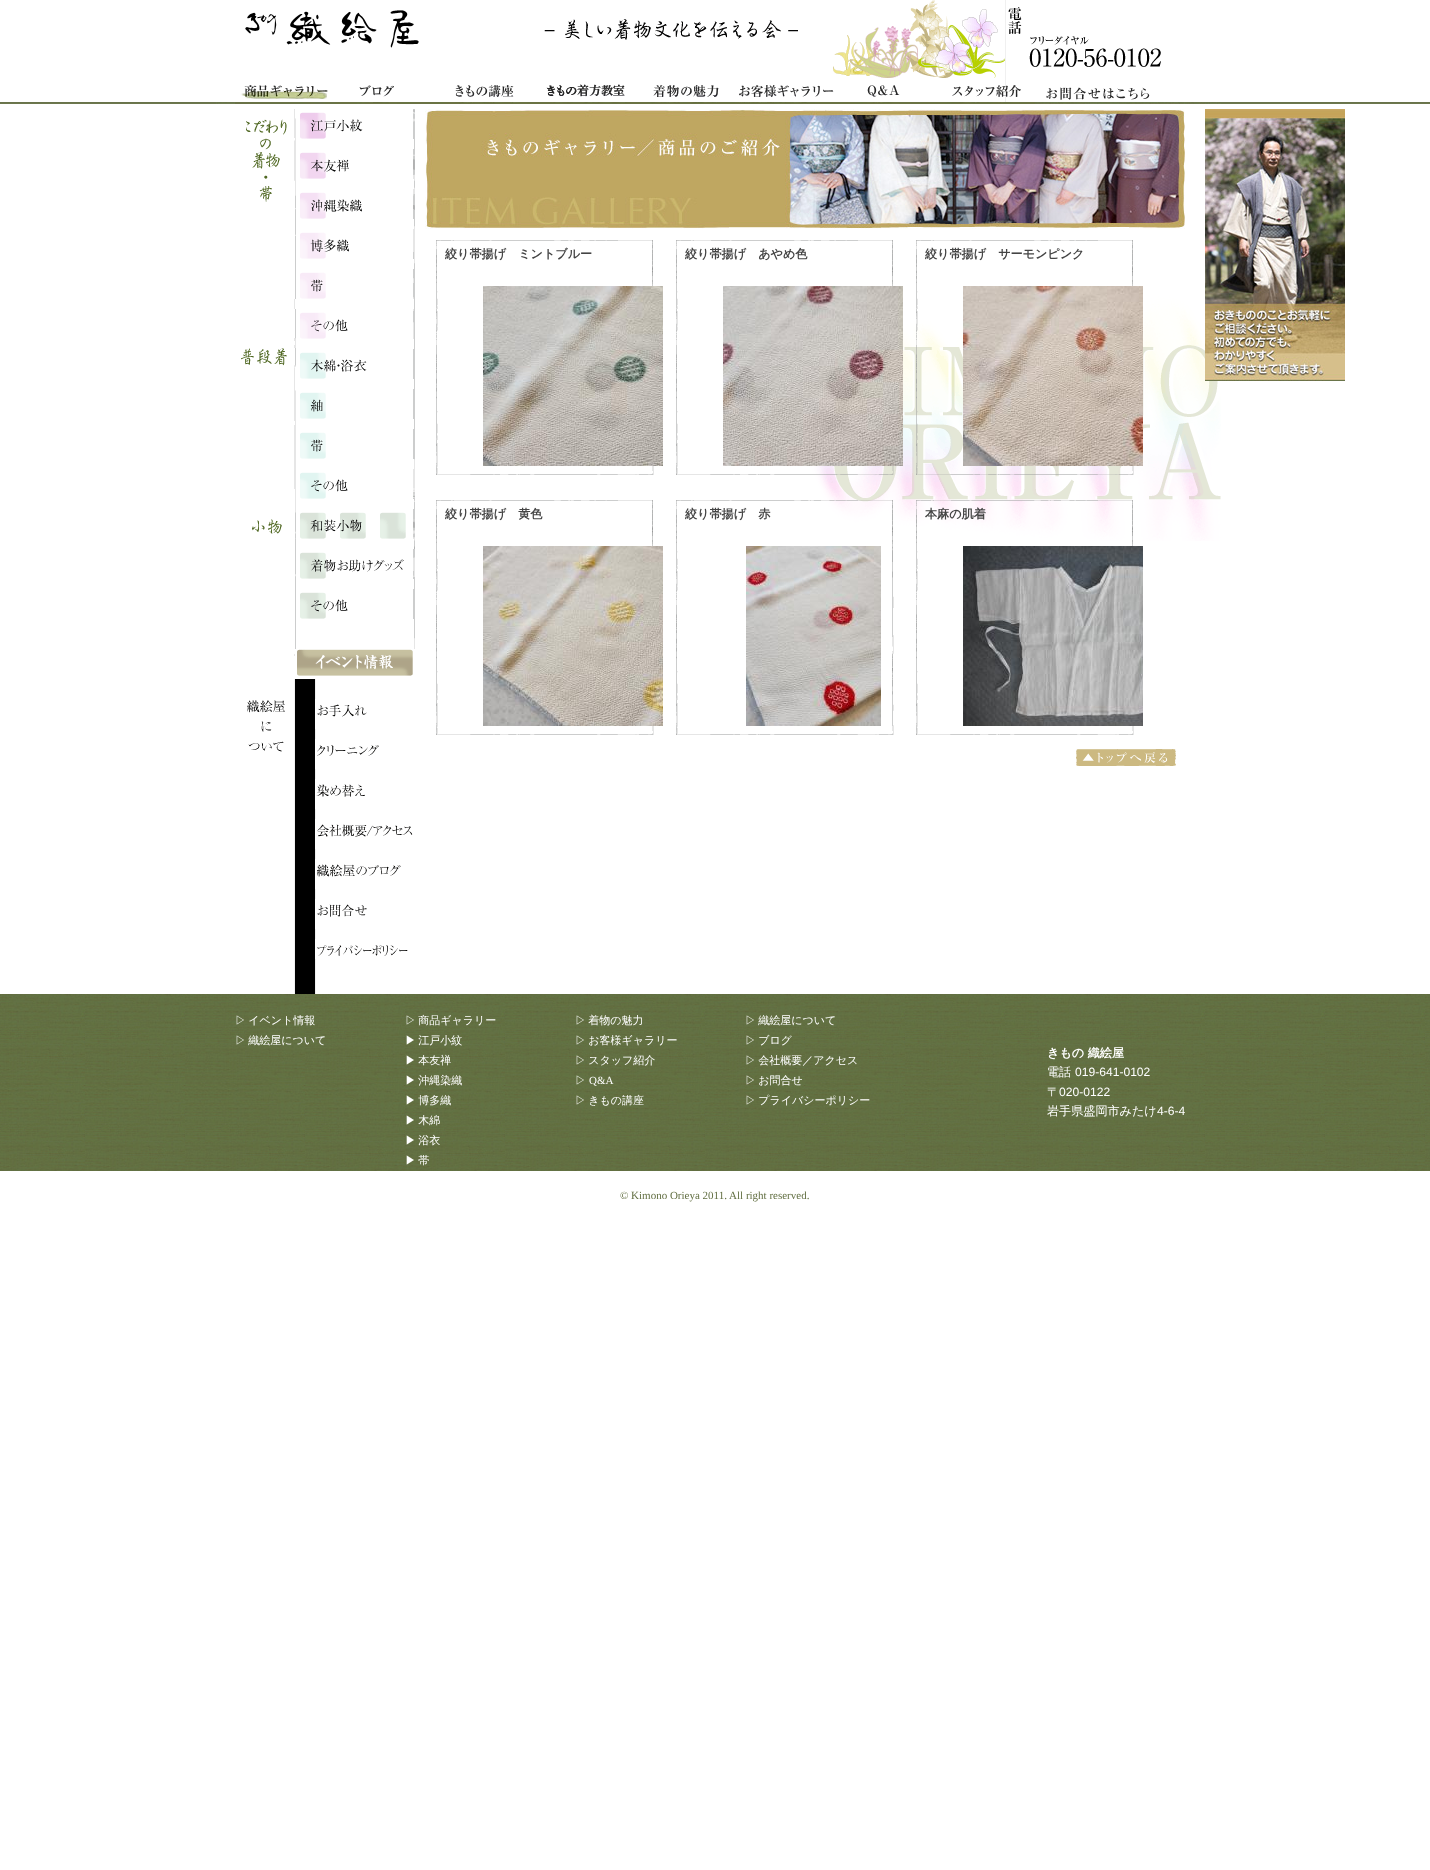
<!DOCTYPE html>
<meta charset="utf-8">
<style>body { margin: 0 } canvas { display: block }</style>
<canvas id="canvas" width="1430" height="1870"></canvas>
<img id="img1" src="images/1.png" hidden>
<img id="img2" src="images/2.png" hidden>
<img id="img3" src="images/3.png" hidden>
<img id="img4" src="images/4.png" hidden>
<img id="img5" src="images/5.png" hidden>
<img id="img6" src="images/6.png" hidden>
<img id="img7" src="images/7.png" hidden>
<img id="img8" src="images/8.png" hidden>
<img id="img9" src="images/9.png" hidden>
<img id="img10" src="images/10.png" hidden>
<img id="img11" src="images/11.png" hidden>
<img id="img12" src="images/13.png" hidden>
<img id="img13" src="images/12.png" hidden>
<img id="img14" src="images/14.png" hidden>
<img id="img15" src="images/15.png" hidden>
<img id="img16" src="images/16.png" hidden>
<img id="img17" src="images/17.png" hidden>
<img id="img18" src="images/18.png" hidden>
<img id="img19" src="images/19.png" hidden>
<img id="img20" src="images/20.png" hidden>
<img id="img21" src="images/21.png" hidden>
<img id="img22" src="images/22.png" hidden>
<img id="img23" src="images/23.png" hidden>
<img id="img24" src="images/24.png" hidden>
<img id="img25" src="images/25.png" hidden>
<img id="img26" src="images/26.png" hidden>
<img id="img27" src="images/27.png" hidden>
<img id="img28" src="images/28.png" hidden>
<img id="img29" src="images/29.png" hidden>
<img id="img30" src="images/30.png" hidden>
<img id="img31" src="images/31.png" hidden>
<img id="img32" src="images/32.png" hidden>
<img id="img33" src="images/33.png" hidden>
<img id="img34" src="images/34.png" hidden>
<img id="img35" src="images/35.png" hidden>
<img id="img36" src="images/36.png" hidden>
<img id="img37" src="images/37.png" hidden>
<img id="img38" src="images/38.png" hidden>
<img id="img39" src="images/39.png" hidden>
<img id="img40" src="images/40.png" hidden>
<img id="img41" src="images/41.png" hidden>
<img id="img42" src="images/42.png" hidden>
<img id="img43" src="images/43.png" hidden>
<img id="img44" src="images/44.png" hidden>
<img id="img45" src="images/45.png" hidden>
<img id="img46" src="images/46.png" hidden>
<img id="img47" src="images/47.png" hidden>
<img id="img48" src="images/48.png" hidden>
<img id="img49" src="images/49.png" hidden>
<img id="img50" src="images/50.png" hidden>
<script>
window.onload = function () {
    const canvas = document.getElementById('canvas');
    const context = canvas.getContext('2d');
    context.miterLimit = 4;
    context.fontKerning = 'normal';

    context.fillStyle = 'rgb(255, 255, 255)';
    context.fillRect(0, 0, 1430, 1870);
    context.drawImage(document.getElementById('img1'), 0, 102, 1430, 2);
    context.drawImage(document.getElementById('img2'), 216, 102, 1005, 439);
    context.drawImage(document.getElementById('img3'), 544, 0, 461, 78);
    context.drawImage(document.getElementById('img4'), 245, 10, 174, 38);
    context.drawImage(document.getElementById('img5'), 235, 85, 100, 19);
    context.drawImage(document.getElementById('img6'), 335, 85, 100, 19);
    context.drawImage(document.getElementById('img7'), 435, 85, 100, 19);
    context.drawImage(document.getElementById('img8'), 535, 84, 100, 20);
    context.drawImage(document.getElementById('img9'), 635, 85, 100, 19);
    context.drawImage(document.getElementById('img10'), 735, 85, 100, 19);
    context.drawImage(document.getElementById('img11'), 835, 85, 100, 19);
    context.drawImage(document.getElementById('img12'), 1005, 0, 156, 104);
    context.drawImage(document.getElementById('img13'), 935, 85, 100, 19);
    context.drawImage(document.getElementById('img14'), 241, 109, 174, 885);
    context.drawImage(document.getElementById('img15'), 300, 109, 114, 30);
    context.drawImage(document.getElementById('img16'), 300, 149, 114, 30);
    context.drawImage(document.getElementById('img17'), 295, 189, 119, 30);
    context.drawImage(document.getElementById('img18'), 295, 229, 119, 30);
    context.drawImage(document.getElementById('img19'), 294, 269, 120, 30);
    context.drawImage(document.getElementById('img20'), 294, 309, 120, 30);
    context.drawImage(document.getElementById('img21'), 300, 349, 114, 30);
    context.drawImage(document.getElementById('img22'), 295, 389, 119, 30);
    context.drawImage(document.getElementById('img23'), 300, 429, 114, 30);
    context.drawImage(document.getElementById('img24'), 294, 469, 120, 30);
    context.drawImage(document.getElementById('img25'), 295, 509, 119, 30);
    context.drawImage(document.getElementById('img26'), 300, 549, 114, 30);
    context.drawImage(document.getElementById('img27'), 300, 589, 114, 30);
    context.drawImage(document.getElementById('img28'), 295, 649, 120, 27);
    context.drawImage(document.getElementById('img29'), 315, 699, 52, 30);
    context.drawImage(document.getElementById('img30'), 315, 739, 64, 30);
    context.drawImage(document.getElementById('img31'), 315, 779, 50, 30);
    context.drawImage(document.getElementById('img32'), 315, 819, 98, 30);
    context.drawImage(document.getElementById('img33'), 315, 859, 86, 30);
    context.drawImage(document.getElementById('img34'), 315, 899, 52, 30);
    context.drawImage(document.getElementById('img35'), 315, 939, 93, 20);
    context.drawImage(document.getElementById('img36'), 425, 109, 760, 120);
    context.drawImage(document.getElementById('img37'), 1205, 109, 140, 272);
    context.drawImage(document.getElementById('img38'), 436, 240, 218, 235);
    context.drawImage(document.getElementById('img39'), 483, 286, 180, 180);
    context.drawImage(document.getElementById('img40'), 676, 240, 218, 235);
    context.drawImage(document.getElementById('img41'), 723, 286, 180, 180);
    context.drawImage(document.getElementById('img42'), 916, 240, 218, 235);
    context.drawImage(document.getElementById('img43'), 963, 286, 180, 180);
    context.drawImage(document.getElementById('img38'), 436, 500, 218, 235);
    context.drawImage(document.getElementById('img44'), 483, 546, 180, 180);
    context.drawImage(document.getElementById('img45'), 676, 500, 218, 235);
    context.drawImage(document.getElementById('img46'), 746, 546, 135, 180);
    context.drawImage(document.getElementById('img47'), 916, 500, 218, 235);
    context.drawImage(document.getElementById('img48'), 963, 546, 180, 180);
    context.drawImage(document.getElementById('img49'), 1076, 749, 100, 17);
    context.drawImage(document.getElementById('img50'), 0, 994, 1430, 177);
    context.font = 'bold 12.1px WenQuanYi Zen Hei';
    context.fillStyle = 'rgb(68, 68, 68)';
    context.fillText('絞り帯揚げ　ミントブルー', 445, 258);
    context.fillText('絞り帯揚げ　あやめ色', 685, 258);
    context.fillText('絞り帯揚げ　サーモンピンク', 925, 258);
    context.fillText('絞り帯揚げ　黄色', 445, 518);
    context.fillText('絞り帯揚げ　赤', 685, 518);
    context.fillText('本麻の肌着', 925, 518);
    context.wordSpacing = '-1px';
    context.font = '500 11px WenQuanYi Zen Hei';
    context.fillStyle = 'rgb(255, 255, 255)';
    context.fillText('▷ イベント情報', 235, 1024);
    context.fillText('▷ 織絵屋について', 235, 1044);
    context.fillText('▷ 商品ギャラリー', 405, 1024);
    context.fillText('▶ 江戸小紋', 405, 1044);
    context.fillText('▶ 本友禅', 405, 1064);
    context.fillText('▶ 沖縄染織', 405, 1084);
    context.fillText('▶ 博多織', 405, 1104);
    context.fillText('▶ 木綿', 405, 1124);
    context.fillText('▶ 浴衣', 405, 1144);
    context.fillText('▶ 帯', 405, 1164);
    context.fillText('▷ 着物の魅力', 575, 1024);
    context.fillText('▷ お客様ギャラリー', 575, 1044);
    context.fillText('▷ スタッフ紹介', 575, 1064);
    context.wordSpacing = '0px';
    context.fillText('▷', 575, 1084);
    context.font = '11px Liberation Serif';
    context.fillText('Q&A', 589, 1084);
    context.wordSpacing = '-1px';
    context.font = '500 11px WenQuanYi Zen Hei';
    context.fillText('▷ きもの講座', 575, 1104);
    context.fillText('▷ 織絵屋について', 745, 1024);
    context.fillText('▷ ブログ', 745, 1044);
    context.fillText('▷ 会社概要／アクセス', 745, 1064);
    context.fillText('▷ お問合せ', 745, 1084);
    context.fillText('▷ プライバシーポリシー', 745, 1104);
    context.wordSpacing = '0px';
    context.font = 'bold 12.1px WenQuanYi Zen Hei';
    context.fillText('きもの 織絵屋', 1047, 1057);
    context.font = '500 12.1px WenQuanYi Zen Hei';
    context.fillText('電話', 1047, 1076);
    context.font = '12.1px Liberation Sans';
    context.fillText('019-641-0102', 1075, 1076);
    context.font = '500 12.1px WenQuanYi Zen Hei';
    context.fillText('〒', 1047, 1096);
    context.font = '12.1px Liberation Sans';
    context.fillText('020-0122', 1059, 1096);
    context.font = '500 12.1px WenQuanYi Zen Hei';
    context.fillText('岩手県盛岡市みたけ', 1047, 1115);
    context.font = '12.1px Liberation Sans';
    context.fillText('4-6-4', 1157, 1115);
    context.font = '11px Liberation Serif';
    context.fillStyle = 'rgb(98, 111, 66)';
    context.fillText('© Kimono Orieya 2011. All right reserved.', 620, 1199);
};
</script>
